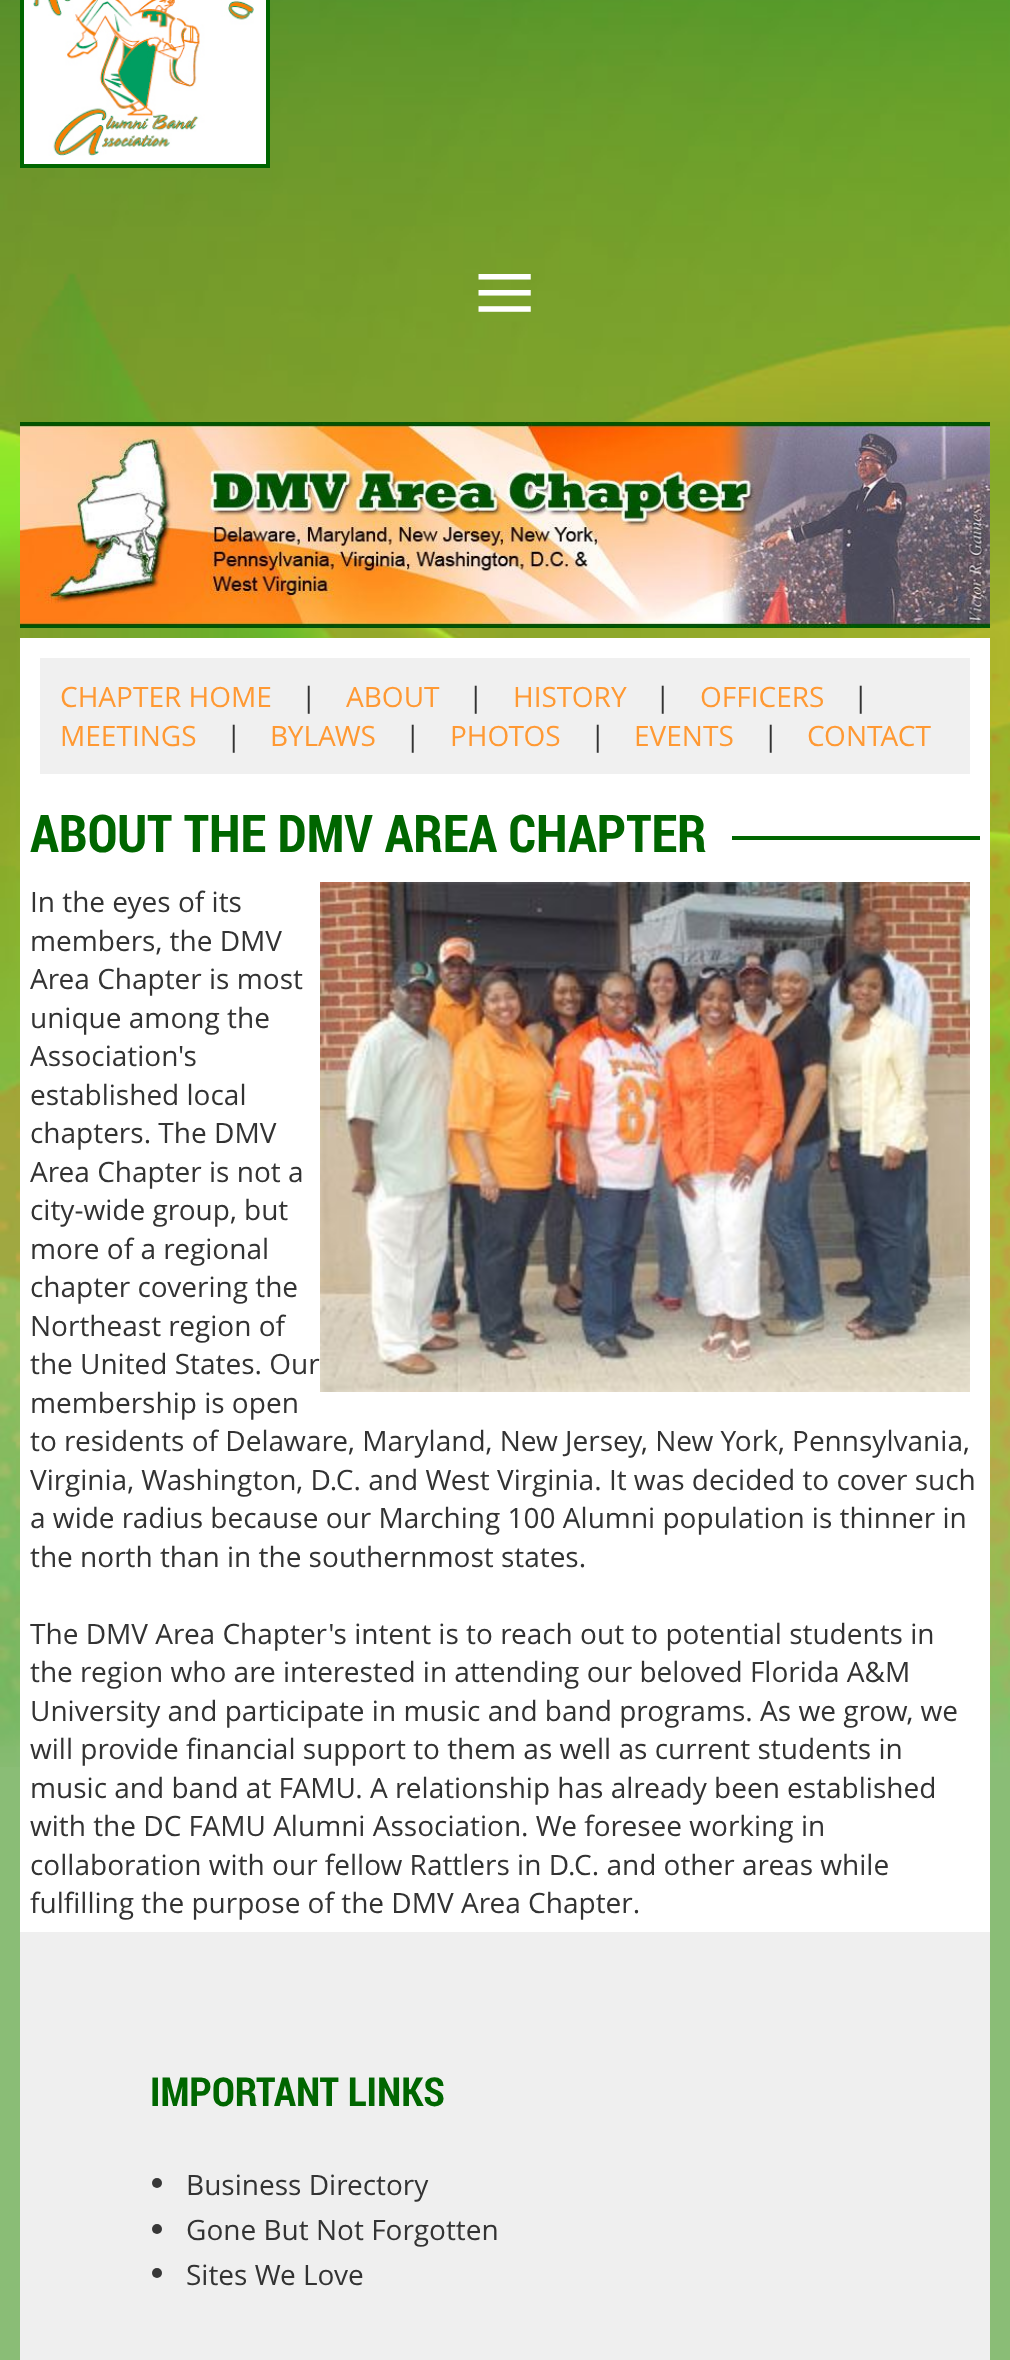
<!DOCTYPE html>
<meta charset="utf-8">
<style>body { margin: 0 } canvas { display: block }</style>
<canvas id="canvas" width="1010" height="2360"></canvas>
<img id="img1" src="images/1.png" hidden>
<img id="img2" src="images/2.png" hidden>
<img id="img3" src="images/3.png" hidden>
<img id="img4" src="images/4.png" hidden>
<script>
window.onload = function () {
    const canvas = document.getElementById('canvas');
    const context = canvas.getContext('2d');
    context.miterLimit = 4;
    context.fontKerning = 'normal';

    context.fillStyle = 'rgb(138, 189, 118)';
    context.fillRect(0, 0, 1010, 2360);
    context.drawImage(document.getElementById('img1'), 0, 0, 1010, 1767);
    context.strokeStyle = 'rgb(0, 102, 0)';
    context.lineWidth = 4;
    context.strokeRect(22, -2, 246, 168);
    context.drawImage(document.getElementById('img2'), 24, 0, 242, 164);
    context.drawImage(document.getElementById('img3'), 20, 422, 970, 206);
    context.fillStyle = 'rgb(255, 255, 255)';
    context.fillRect(20, 638, 970, 1294);
    context.fillStyle = 'rgb(240, 240, 240)';
    context.fillRect(40, 658, 930, 116);
    context.fillStyle = 'rgb(0, 102, 0)';
    context.fillRect(732, 836, 248, 4);
    context.drawImage(document.getElementById('img4'), 320, 882, 650, 510);
    context.fillStyle = 'rgb(239, 239, 239)';
    context.fillRect(20, 1932, 970, 428);
    context.fillStyle = 'rgb(55, 55, 55)';
    context.beginPath();
    context.arc(157, 2183, 5, 0, 2 * Math.PI);
    context.fill();
    context.beginPath();
    context.arc(157, 2229, 5, 0, 2 * Math.PI);
    context.fill();
    context.beginPath();
    context.arc(157, 2273, 5, 0, 2 * Math.PI);
    context.fill();
    context.font = '112px Liberation Serif';
    context.fillStyle = 'rgb(255, 255, 255)';
    context.fillText('≡', 473, 330);
    context.font = '28px Open Sans';
    context.fillStyle = 'rgb(255, 153, 51)';
    context.fillText('CHAPTER HOME', 60, 707);
    context.fillStyle = 'rgb(51, 51, 51)';
    context.fillText('|', 301, 707);
    context.fillStyle = 'rgb(255, 153, 51)';
    context.fillText('ABOUT', 346, 707);
    context.fillStyle = 'rgb(51, 51, 51)';
    context.fillText('|', 468, 707);
    context.fillStyle = 'rgb(255, 153, 51)';
    context.fillText('HISTORY', 513, 707);
    context.fillStyle = 'rgb(51, 51, 51)';
    context.fillText('|', 655, 707);
    context.fillStyle = 'rgb(255, 153, 51)';
    context.fillText('OFFICERS', 700, 707);
    context.fillStyle = 'rgb(51, 51, 51)';
    context.fillText('|', 853, 707);
    context.fillStyle = 'rgb(255, 153, 51)';
    context.fillText('MEETINGS', 60, 746);
    context.fillStyle = 'rgb(51, 51, 51)';
    context.fillText('|', 226, 746);
    context.fillStyle = 'rgb(255, 153, 51)';
    context.fillText('BYLAWS', 270, 746);
    context.fillStyle = 'rgb(51, 51, 51)';
    context.fillText('|', 405, 746);
    context.fillStyle = 'rgb(255, 153, 51)';
    context.fillText('PHOTOS', 450, 746);
    context.fillStyle = 'rgb(51, 51, 51)';
    context.fillText('|', 590, 746);
    context.fillStyle = 'rgb(255, 153, 51)';
    context.fillText('EVENTS', 634, 746);
    context.fillStyle = 'rgb(51, 51, 51)';
    context.fillText('|', 763, 746);
    context.fillStyle = 'rgb(255, 153, 51)';
    context.fillText('CONTACT', 807, 746);
    context.font = 'bold 52px Roboto Condensed';
    context.fillStyle = 'rgb(0, 102, 0)';
    context.fillText('ABOUT THE DMV AREA CHAPTER', 30, 852);
    context.font = '28px Open Sans';
    context.fillStyle = 'rgb(51, 51, 51)';
    context.fillText('In the eyes of its', 30, 912);
    context.fillText('members, the DMV', 30, 951);
    context.fillText('Area Chapter is most', 30, 989);
    context.fillText('unique among the', 30, 1028);
    context.fillText('Association\'s', 30, 1066);
    context.fillText('established local', 30, 1105);
    context.fillText('chapters. The DMV', 30, 1143);
    context.fillText('Area Chapter is not a', 30, 1182);
    context.fillText('city-wide group, but', 30, 1220);
    context.fillText('more of a regional', 30, 1259);
    context.fillText('chapter covering the', 30, 1297);
    context.fillText('Northeast region of', 30, 1336);
    context.fillText('the United States. Our', 30, 1374);
    context.fillText('membership is open', 30, 1413);
    context.fillText('to residents of Delaware, Maryland, New Jersey, New York, Pennsylvania,', 30, 1451);
    context.fillText('Virginia, Washington, D.C. and West Virginia. It was decided to cover such', 30, 1490);
    context.fillText('a wide radius because our Marching 100 Alumni population is thinner in', 30, 1528);
    context.fillText('the north than in the southernmost states.', 30, 1567);
    context.fillText('The DMV Area Chapter\'s intent is to reach out to potential students in', 30, 1644);
    context.fillText('the region who are interested in attending our beloved Florida A&M', 30, 1682);
    context.fillText('University and participate in music and band programs. As we grow, we', 30, 1721);
    context.fillText('will provide financial support to them as well as current students in', 30, 1759);
    context.fillText('music and band at FAMU. A relationship has already been established', 30, 1798);
    context.fillText('with the DC FAMU Alumni Association. We foresee working in', 30, 1836);
    context.fillText('collaboration with our fellow Rattlers in D.C. and other areas while', 30, 1875);
    context.fillText('fulfilling the purpose of the DMV Area Chapter.', 30, 1913);
    context.font = 'bold 40px Roboto Condensed';
    context.fillStyle = 'rgb(0, 102, 0)';
    context.fillText('IMPORTANT LINKS', 150, 2106);
    context.font = '28px Open Sans';
    context.fillStyle = 'rgb(51, 51, 51)';
    context.fillText('Business Directory', 186, 2195);
    context.fillText('Gone But Not Forgotten', 186, 2240);
    context.fillText('Sites We Love', 186, 2285);
};
</script>
